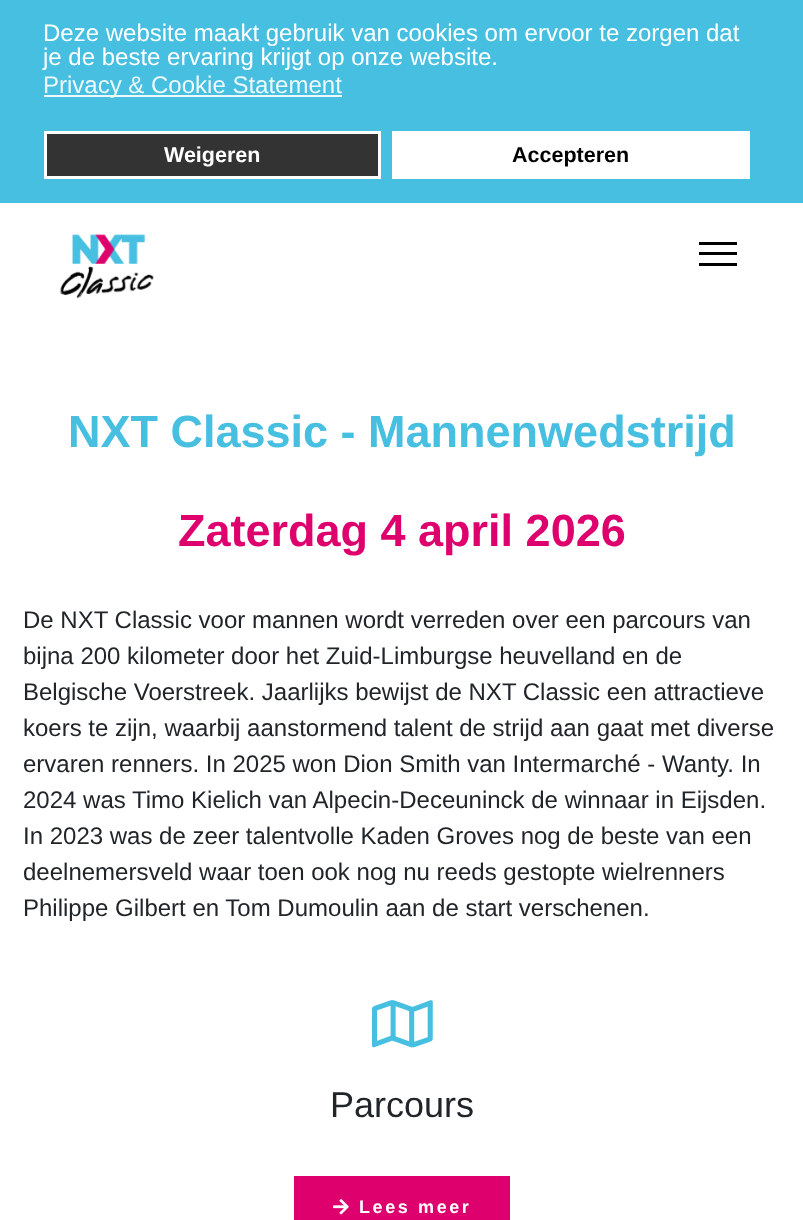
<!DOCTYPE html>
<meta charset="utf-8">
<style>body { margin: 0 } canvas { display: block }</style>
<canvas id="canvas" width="803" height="1220"></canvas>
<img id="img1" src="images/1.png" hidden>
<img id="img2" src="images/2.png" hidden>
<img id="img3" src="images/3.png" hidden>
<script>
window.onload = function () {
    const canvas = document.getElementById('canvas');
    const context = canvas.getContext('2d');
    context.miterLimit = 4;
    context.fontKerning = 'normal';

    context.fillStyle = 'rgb(255, 255, 255)';
    context.fillRect(0, 0, 803, 1220);
    context.fillStyle = 'rgb(70, 191, 224)';
    context.fillRect(0, 0, 803, 203);
    context.fillStyle = 'rgb(237, 249, 252)';
    context.fillRect(44, 95, 298, 2);
    context.fillStyle = 'rgb(51, 51, 51)';
    context.beginPath();
    context.rect(45.5, 132.5, 334, 45);
    context.fill();
    context.strokeStyle = 'rgb(255, 255, 255)';
    context.lineWidth = 3;
    context.stroke();
    context.fillStyle = 'rgb(255, 255, 255)';
    context.fillRect(392, 131, 358, 48);
    context.drawImage(document.getElementById('img1'), 60, 234, 94, 65);
    context.fillStyle = 'rgb(0, 0, 0)';
    context.fillRect(699, 242, 38, 3);
    context.fillRect(699, 252, 38, 3);
    context.fillRect(699, 263, 38, 3);
    context.drawImage(document.getElementById('img2'), 372, 1000, 61, 48);
    context.fillStyle = 'rgb(221, 0, 109)';
    context.fillRect(294, 1176, 216, 44);
    context.drawImage(document.getElementById('img3'), 333, 1199, 16, 16);
    context.font = '24px Liberation Sans';
    context.fillStyle = 'rgb(255, 255, 255)';
    context.fillText('Deze website maakt gebruik van cookies om ervoor te zorgen dat', 43, 41);
    context.fillText('je de beste ervaring krijgt op onze website.', 43, 65);
    context.fillStyle = 'rgb(237, 249, 252)';
    context.fillText('Privacy & Cookie Statement', 43, 93);
    context.font = 'bold 21.5px Liberation Sans';
    context.fillStyle = 'rgb(255, 255, 255)';
    context.fillText('Weigeren', 164, 162);
    context.fillStyle = 'rgb(0, 0, 0)';
    context.fillText('Accepteren', 512, 162);
    context.font = 'bold 45px Liberation Sans';
    context.fillStyle = 'rgb(70, 191, 224)';
    context.fillText('NXT Classic - Mannenwedstrijd', 68, 447);
    context.fillStyle = 'rgb(221, 0, 109)';
    context.fillText('Zaterdag 4 april 2026', 178, 546);
    context.font = '24px Liberation Sans';
    context.fillStyle = 'rgb(33, 37, 41)';
    context.fillText('De NXT Classic voor mannen wordt verreden over een parcours van', 23, 628);
    context.fillText('bijna 200 kilometer door het Zuid-Limburgse heuvelland en de', 23, 664);
    context.fillText('Belgische Voerstreek. Jaarlijks bewijst de NXT Classic een attractieve', 23, 700);
    context.fillText('koers te zijn, waarbij aanstormend talent de strijd aan gaat met diverse', 23, 736);
    context.fillText('ervaren renners. In 2025 won Dion Smith van Intermarché - Wanty. In', 23, 772);
    context.fillText('2024 was Timo Kielich van Alpecin-Deceuninck de winnaar in Eijsden.', 23, 808);
    context.fillText('In 2023 was de zeer talentvolle Kaden Groves nog de beste van een', 23, 844);
    context.fillText('deelnemersveld waar toen ook nog nu reeds gestopte wielrenners', 23, 880);
    context.fillText('Philippe Gilbert en Tom Dumoulin aan de start verschenen.', 23, 916);
    context.font = '36px Liberation Sans';
    context.fillText('Parcours', 330, 1117);
    context.letterSpacing = '2.6px';
    context.font = 'bold 18px Liberation Sans';
    context.fillStyle = 'rgb(255, 255, 255)';
    context.fillText('Lees meer', 359, 1213);
};
</script>
